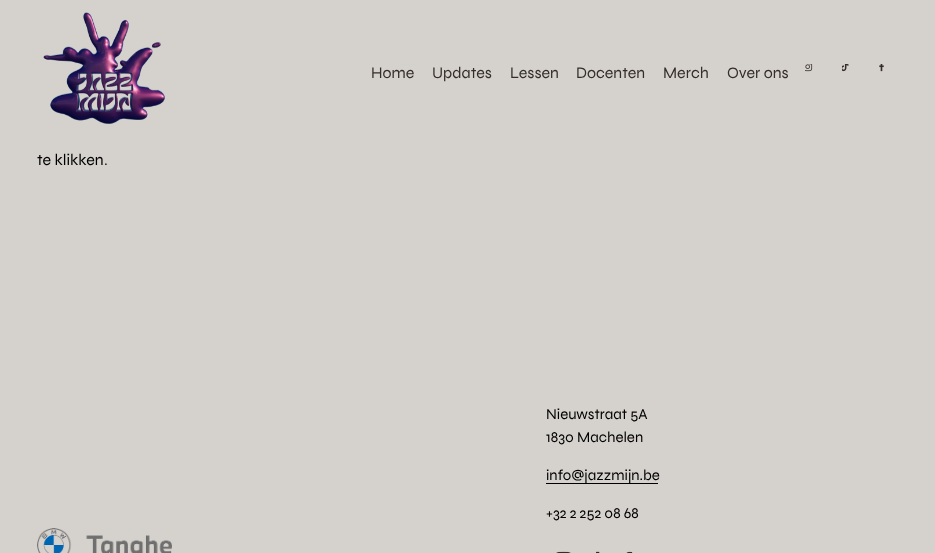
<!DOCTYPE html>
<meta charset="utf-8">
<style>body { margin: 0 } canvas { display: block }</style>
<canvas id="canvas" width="935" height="553"></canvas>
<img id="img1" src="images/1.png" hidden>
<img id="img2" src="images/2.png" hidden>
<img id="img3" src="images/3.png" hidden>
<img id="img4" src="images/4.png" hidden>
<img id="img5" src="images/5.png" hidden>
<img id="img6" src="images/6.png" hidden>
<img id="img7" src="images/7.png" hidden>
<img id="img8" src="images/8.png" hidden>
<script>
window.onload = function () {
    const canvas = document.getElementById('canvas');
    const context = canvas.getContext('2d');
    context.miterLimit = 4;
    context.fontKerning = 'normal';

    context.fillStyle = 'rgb(213, 210, 205)';
    context.fillRect(0, 0, 935, 553);
    context.drawImage(document.getElementById('img1'), 43, 12, 122, 112);
    context.drawImage(document.getElementById('img2'), 805, 64, 8, 8);
    context.drawImage(document.getElementById('img3'), 842, 64, 7, 8);
    context.drawImage(document.getElementById('img4'), 879, 64, 5, 8);
    context.fillStyle = 'rgb(0, 0, 0)';
    context.fillRect(546, 483, 112, 1);
    context.drawImage(document.getElementById('img5'), 37, 528, 135, 25);
    context.drawImage(document.getElementById('img6'), 556, 551, 15, 2);
    context.drawImage(document.getElementById('img7'), 596, 551, 4, 2);
    context.drawImage(document.getElementById('img8'), 626, 551, 7, 2);
    context.font = '16px Syne';
    context.fillStyle = 'rgb(53, 45, 40)';
    context.fillText('Home', 371, 78);
    context.fillText('Updates', 432, 78);
    context.fillText('Lessen', 510, 78);
    context.fillText('Docenten', 576, 78);
    context.fillText('Merch', 663, 78);
    context.fillText('Over ons', 727, 78);
    context.fillStyle = 'rgb(0, 0, 0)';
    context.fillText('te klikken', 37, 165);
    context.fillStyle = 'rgb(53, 45, 40)';
    context.fillText('.', 104, 165);
    context.font = '15px Syne';
    context.fillStyle = 'rgb(0, 0, 0)';
    context.fillText('Nieuwstraat 5A', 546, 419);
    context.fillText('1830 Machelen', 546, 442);
    context.fillText('info@jazzmijn.be', 546, 480);
    context.fillText('+32 2 252 08 68', 546, 518);
};
</script>
